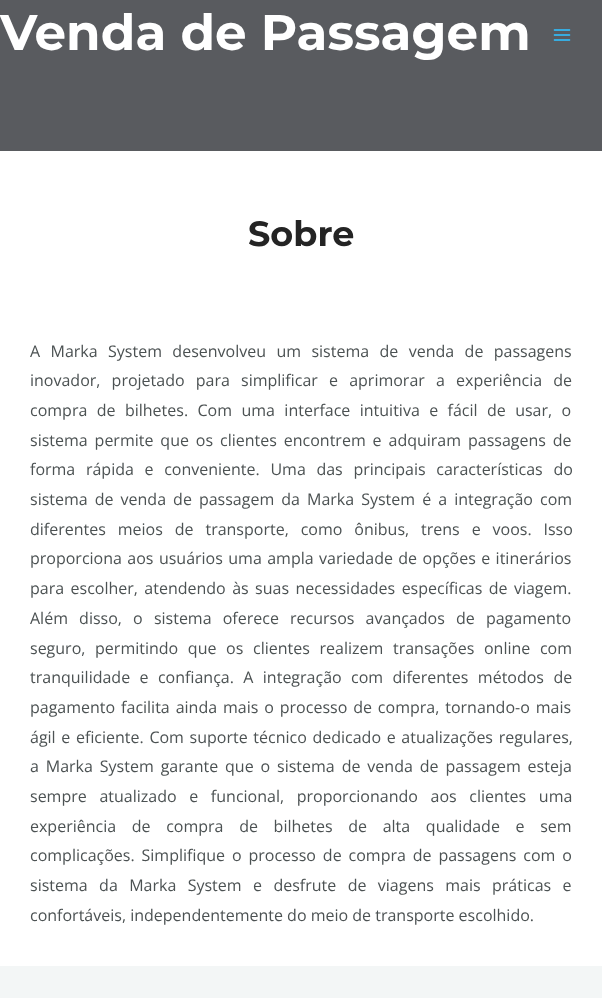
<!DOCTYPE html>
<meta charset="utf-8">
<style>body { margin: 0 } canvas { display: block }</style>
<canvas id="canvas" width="602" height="998"></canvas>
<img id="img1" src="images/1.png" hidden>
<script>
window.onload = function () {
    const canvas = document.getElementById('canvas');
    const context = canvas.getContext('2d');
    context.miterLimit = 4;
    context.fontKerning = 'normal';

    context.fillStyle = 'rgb(243, 246, 246)';
    context.fillRect(0, 0, 602, 998);
    context.fillStyle = 'rgb(89, 91, 95)';
    context.fillRect(0, 0, 602, 151);
    context.fillStyle = 'rgb(255, 255, 255)';
    context.fillRect(0, 151, 602, 815);
    context.drawImage(document.getElementById('img1'), 553, 29, 18, 12);
    context.font = '100 50px Montserrat';
    context.fillText('Venda de Passagem', 0, 50);
    context.font = '100 35px Montserrat';
    context.fillStyle = 'rgb(36, 36, 36)';
    context.fillText('Sobre', 248, 246);
    context.wordSpacing = '6.25px';
    context.font = '16px Open Sans';
    context.fillStyle = 'rgb(76, 82, 83)';
    context.fillText('A Marka System desenvolveu um sistema de venda de passagens', 30, 357);
    context.wordSpacing = '7px';
    context.fillText('inovador, projetado para simplificar e aprimorar a experiência de', 30, 386);
    context.wordSpacing = '5.25px';
    context.fillText('compra de bilhetes. Com uma interface intuitiva e fácil de usar, o', 30, 416);
    context.wordSpacing = '2.75px';
    context.fillText('sistema permite que os clientes encontrem e adquiram passagens de', 30, 446);
    context.wordSpacing = '6.5px';
    context.fillText('forma rápida e conveniente. Uma das principais características do', 30, 475);
    context.wordSpacing = '2.9px';
    context.fillText('sistema de venda de passagem da Marka System é a integração com', 30, 505);
    context.wordSpacing = '7.75px';
    context.fillText('diferentes meios de transporte, como ônibus, trens e voos. Isso', 30, 535);
    context.wordSpacing = '1.25px';
    context.fillText('proporciona aos usuários uma ampla variedade de opções e itinerários', 30, 564);
    context.wordSpacing = '2.25px';
    context.fillText('para escolher, atendendo às suas necessidades específicas de viagem.', 30, 594);
    context.wordSpacing = '7px';
    context.fillText('Além disso, o sistema oferece recursos avançados de pagamento', 30, 624);
    context.wordSpacing = '5.5px';
    context.fillText('seguro, permitindo que os clientes realizem transações online com', 30, 654);
    context.wordSpacing = '5.25px';
    context.fillText('tranquilidade e confiança. A integração com diferentes métodos de', 30, 683);
    context.wordSpacing = '1.75px';
    context.fillText('pagamento facilita ainda mais o processo de compra, tornando-o mais', 30, 713);
    context.wordSpacing = '1.5px';
    context.fillText('ágil e eficiente. Com suporte técnico dedicado e atualizações regulares,', 30, 743);
    context.wordSpacing = '2.75px';
    context.fillText('a Marka System garante que o sistema de venda de passagem esteja', 30, 772);
    context.wordSpacing = '8.5px';
    context.fillText('sempre atualizado e funcional, proporcionando aos clientes uma', 30, 802);
    context.wordSpacing = '11.5px';
    context.fillText('experiência de compra de bilhetes de alta qualidade e sem', 30, 832);
    context.wordSpacing = '2.75px';
    context.fillText('complicações. Simplifique o processo de compra de passagens com o', 30, 861);
    context.wordSpacing = '7.25px';
    context.fillText('sistema da Marka System e desfrute de viagens mais práticas e', 30, 891);
    context.wordSpacing = '0px';
    context.fillText('confortáveis, independentemente do meio de transporte escolhido.', 30, 921);
};
</script>
